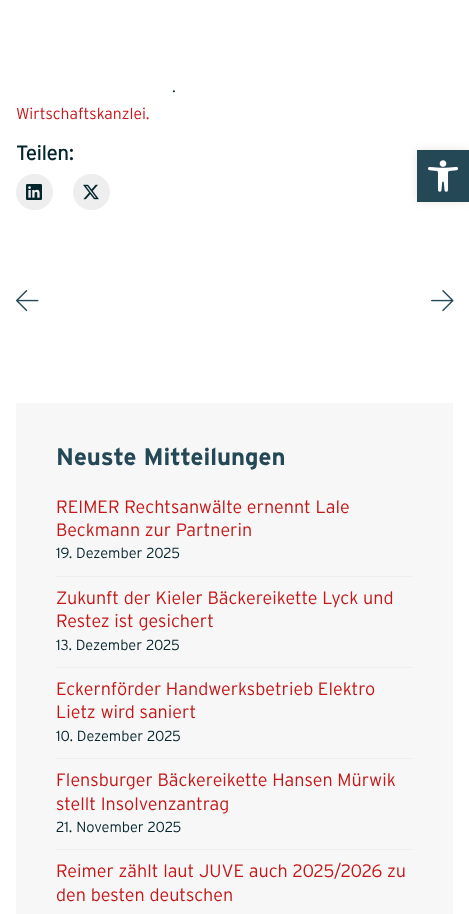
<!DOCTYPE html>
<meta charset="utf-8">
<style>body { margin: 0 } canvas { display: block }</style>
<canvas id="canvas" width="469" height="914"></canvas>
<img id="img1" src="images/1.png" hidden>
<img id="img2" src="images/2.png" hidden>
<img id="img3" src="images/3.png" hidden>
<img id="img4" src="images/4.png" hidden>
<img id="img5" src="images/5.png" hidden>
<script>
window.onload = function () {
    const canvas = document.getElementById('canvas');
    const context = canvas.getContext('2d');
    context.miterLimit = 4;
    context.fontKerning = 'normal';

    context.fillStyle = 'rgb(255, 255, 255)';
    context.fillRect(0, 0, 469, 914);
    context.fillStyle = 'rgb(238, 238, 238)';
    context.beginPath();
    context.roundRect(16, 174, 37, 36, 18);
    context.fill();
    context.drawImage(document.getElementById('img1'), 26, 184, 16, 16);
    context.beginPath();
    context.roundRect(73, 174, 37, 36, 18);
    context.fill();
    context.drawImage(document.getElementById('img2'), 83, 184, 16, 16);
    context.drawImage(document.getElementById('img3'), 16, 290, 23, 22);
    context.drawImage(document.getElementById('img4'), 431, 290, 23, 22);
    context.fillStyle = 'rgb(247, 247, 247)';
    context.fillRect(16, 403, 437, 511);
    context.fillStyle = 'rgb(238, 238, 238)';
    context.fillRect(56, 576, 357, 1);
    context.fillRect(56, 667, 357, 1);
    context.fillRect(56, 758, 357, 1);
    context.fillRect(56, 849, 357, 1);
    context.fillStyle = 'rgba(0, 0, 0, 0.1)';
    context.filter = 'blur(5px)';
    context.beginPath();
    context.rect(417, 150, 52, 52);
    context.fill();
    context.filter = 'none';
    context.fillStyle = 'rgb(36, 72, 85)';
    context.fillRect(417, 150, 52, 52);
    context.drawImage(document.getElementById('img5'), 428, 160, 30, 32);
    context.font = '300 15.75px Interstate';
    context.fillStyle = 'rgb(5, 37, 45)';
    context.fillText('.', 172, 92);
    context.fillStyle = 'rgb(197, 23, 24)';
    context.fillText('Wirtschaftskanzlei.', 16, 119);
    context.font = 'bold 20px Interstate';
    context.fillStyle = 'rgb(5, 37, 45)';
    context.fillText('Teilen:', 16, 160);
    context.font = 'bold 24px "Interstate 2"';
    context.fillStyle = 'rgb(36, 72, 85)';
    context.fillText('Neuste Mitteilungen', 56, 465);
    context.font = '300 18px Interstate';
    context.fillStyle = 'rgb(197, 23, 24)';
    context.fillText('REIMER Rechtsanwälte ernennt Lale', 56, 513);
    context.fillText('Beckmann zur Partnerin', 56, 536);
    context.font = '300 14.6px Interstate';
    context.fillStyle = 'rgb(5, 37, 45)';
    context.fillText('19. Dezember 2025', 56, 558);
    context.font = '300 18px Interstate';
    context.fillStyle = 'rgb(197, 23, 24)';
    context.fillText('Zukunft der Kieler Bäckereikette Lyck und', 56, 604);
    context.fillText('Restez ist gesichert', 56, 627);
    context.font = '300 14.6px Interstate';
    context.fillStyle = 'rgb(5, 37, 45)';
    context.fillText('13. Dezember 2025', 56, 650);
    context.font = '300 18px Interstate';
    context.fillStyle = 'rgb(197, 23, 24)';
    context.fillText('Eckernförder Handwerksbetrieb Elektro', 56, 695);
    context.fillText('Lietz wird saniert', 56, 718);
    context.font = '300 14.6px Interstate';
    context.fillStyle = 'rgb(5, 37, 45)';
    context.fillText('10. Dezember 2025', 56, 741);
    context.font = '300 18px Interstate';
    context.fillStyle = 'rgb(197, 23, 24)';
    context.fillText('Flensburger Bäckereikette Hansen Mürwik', 56, 786);
    context.fillText('stellt Insolvenzantrag', 56, 810);
    context.font = '300 14.6px Interstate';
    context.fillStyle = 'rgb(5, 37, 45)';
    context.fillText('21. November 2025', 56, 832);
    context.font = '300 18px Interstate';
    context.fillStyle = 'rgb(197, 23, 24)';
    context.fillText('Reimer zählt laut JUVE auch 2025/2026 zu', 56, 877);
    context.fillText('den besten deutschen', 56, 901);
};
</script>
